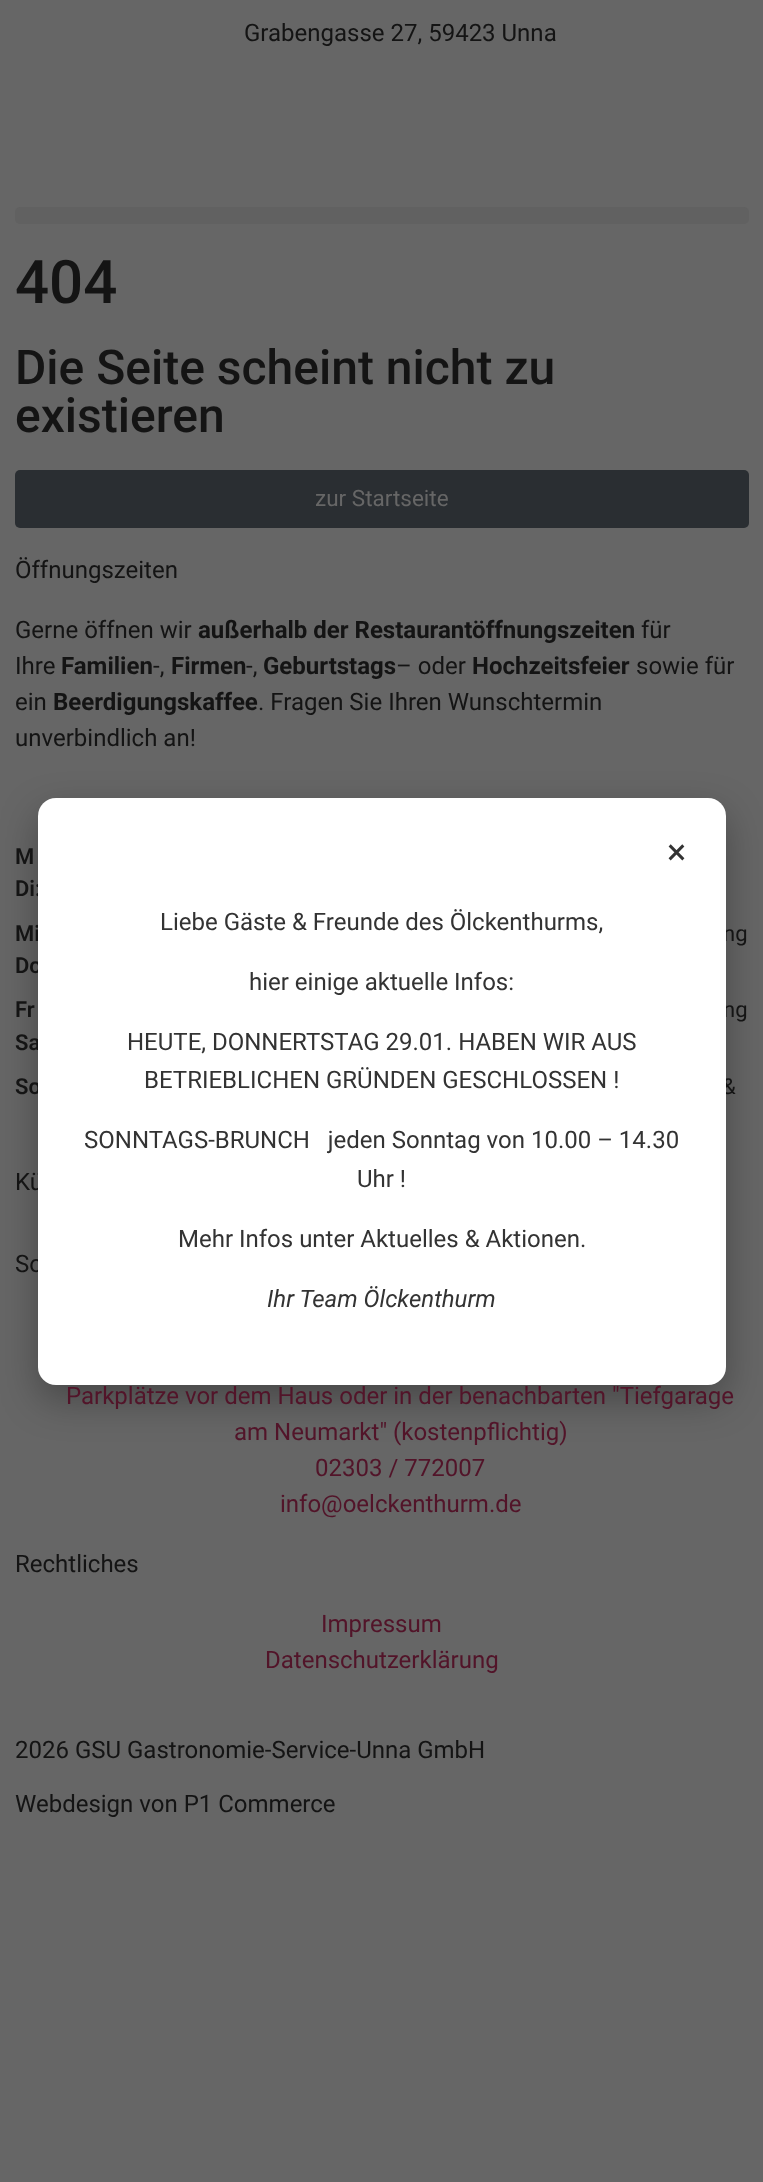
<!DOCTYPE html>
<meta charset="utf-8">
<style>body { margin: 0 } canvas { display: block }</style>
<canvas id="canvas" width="763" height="2182"></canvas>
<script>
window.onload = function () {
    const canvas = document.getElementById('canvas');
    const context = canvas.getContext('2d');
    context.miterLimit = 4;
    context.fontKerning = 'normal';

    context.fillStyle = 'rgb(102, 102, 102)';
    context.fillRect(0, 0, 763, 2182);
    context.fillStyle = 'rgb(97, 97, 97)';
    context.beginPath();
    context.roundRect(15, 207, 734, 17, 5);
    context.fill();
    context.fillStyle = 'rgb(42, 46, 50)';
    context.beginPath();
    context.roundRect(15, 470, 734, 58, 5);
    context.fill();
    context.fillStyle = 'rgba(0, 0, 0, 0.3)';
    context.filter = 'blur(19px)';
    context.beginPath();
    context.roundRect(38, 813, 688, 587, 18);
    context.fill();
    context.filter = 'none';
    context.font = '24px Roboto';
    context.fillStyle = 'rgb(20, 20, 20)';
    context.fillText('Grabengasse 27, 59423 Unna', 244, 41);
    context.font = '500 60px Roboto';
    context.fillText('404', 15, 303);
    context.font = '500 48px Roboto';
    context.fillText('Die Seite scheint nicht zu', 15, 384);
    context.fillText('existieren', 15, 432);
    context.font = '22.5px Roboto';
    context.fillStyle = 'rgb(102, 102, 102)';
    context.fillText('zur Startseite', 315, 506);
    context.font = '24px Roboto';
    context.fillStyle = 'rgb(20, 20, 20)';
    context.fillText('Öffnungszeiten', 15, 578);
    context.fillText('Gerne öffnen wir', 15, 638);
    context.font = 'bold 24px Roboto';
    context.fillText('außerhalb der Restaurantöffnungszeiten', 198, 638);
    context.font = '24px Roboto';
    context.fillText('für', 641, 638);
    context.fillText('Ihre', 15, 674);
    context.font = 'bold 24px Roboto';
    context.fillText('Familien', 61, 674);
    context.font = '24px Roboto';
    context.fillText('-,', 153, 674);
    context.font = 'bold 24px Roboto';
    context.fillText('Firmen', 171, 674);
    context.font = '24px Roboto';
    context.fillText('-,', 246, 674);
    context.font = 'bold 24px Roboto';
    context.fillText('Geburtstags', 263, 674);
    context.font = '24px Roboto';
    context.fillText('– oder', 396, 674);
    context.font = 'bold 24px Roboto';
    context.fillText('Hochzeitsfeier', 472, 674);
    context.font = '24px Roboto';
    context.fillText('sowie für', 636, 674);
    context.fillText('ein', 15, 710);
    context.font = 'bold 24px Roboto';
    context.fillText('Beerdigungskaffee', 53, 710);
    context.font = '24px Roboto';
    context.fillText('. Fragen Sie Ihren Wunschtermin', 258, 710);
    context.fillText('unverbindlich an!', 15, 746);
    context.font = '600 22px Roboto';
    context.fillText('M', 15, 864);
    context.fillText('Di:', 15, 896);
    context.fillText('Mi', 15, 941);
    context.fillText('Do', 15, 973);
    context.font = '22px Roboto';
    context.fillText('ng', 723, 941);
    context.font = '600 22px Roboto';
    context.fillText('Fr', 15, 1017);
    context.fillText('Sa', 15, 1050);
    context.font = '22px Roboto';
    context.fillText('ng', 723, 1017);
    context.font = '600 22px Roboto';
    context.fillText('So', 15, 1094);
    context.font = '22px Roboto';
    context.fillText('&', 722, 1094);
    context.font = '24px Roboto';
    context.fillText('Kü', 15, 1190);
    context.fillText('So', 15, 1272);
    context.fillStyle = 'rgb(82, 20, 41)';
    context.fillText('Parkplätze vor dem Haus oder in der benachbarten "Tiefgarage', 66, 1404);
    context.fillText('am Neumarkt" (kostenpflichtig)', 234, 1440);
    context.fillText('02303 / 772007', 315, 1476);
    context.fillText('info@oelckenthurm.de', 280, 1512);
    context.fillStyle = 'rgb(20, 20, 20)';
    context.fillText('Rechtliches', 15, 1572);
    context.fillStyle = 'rgb(82, 20, 41)';
    context.fillText('Impressum', 321, 1632);
    context.fillText('Datenschutzerklärung', 265, 1668);
    context.fillStyle = 'rgb(20, 20, 20)';
    context.fillText('2026 GSU Gastronomie-Service-Unna GmbH', 15, 1758);
    context.fillText('Webdesign von P1 Commerce', 15, 1812);
    context.fillStyle = 'rgb(255, 255, 255)';
    context.beginPath();
    context.roundRect(38, 798, 688, 587, 18);
    context.fill();
    context.font = '36px Roboto';
    context.fillStyle = 'rgb(51, 51, 51)';
    context.fillText('×', 667, 864);
    context.font = '24px Roboto';
    context.fillText('Liebe Gäste & Freunde des Ölckenthurms,', 160, 930);
    context.fillText('hier einige aktuelle Infos:', 249, 990);
    context.fillText('HEUTE, DONNERTSTAG 29.01. HABEN WIR AUS', 127, 1050);
    context.fillText('BETRIEBLICHEN GRÜNDEN GESCHLOSSEN !', 144, 1088);
    context.fillText('SONNTAGS-BRUNCH   jeden Sonntag von 10.00 – 14.30', 84, 1148);
    context.fillText('Uhr !', 357, 1187);
    context.fillText('Mehr Infos unter Aktuelles & Aktionen.', 178, 1247);
    context.font = 'italic 24px Roboto';
    context.fillText('Ihr Team Ölckenthurm', 267, 1307);
};
</script>
